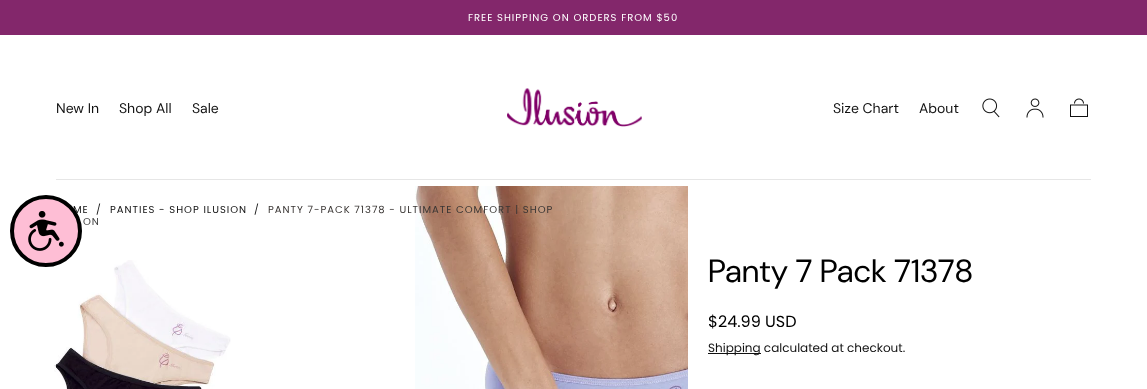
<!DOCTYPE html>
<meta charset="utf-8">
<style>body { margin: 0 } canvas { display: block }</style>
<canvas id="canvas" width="1147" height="389"></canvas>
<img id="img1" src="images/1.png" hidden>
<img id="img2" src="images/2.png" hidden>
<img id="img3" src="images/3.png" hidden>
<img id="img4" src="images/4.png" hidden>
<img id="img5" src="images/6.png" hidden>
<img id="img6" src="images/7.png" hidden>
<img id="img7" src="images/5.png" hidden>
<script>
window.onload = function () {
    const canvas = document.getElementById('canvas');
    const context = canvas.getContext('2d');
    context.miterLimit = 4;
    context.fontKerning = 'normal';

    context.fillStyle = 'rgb(255, 255, 255)';
    context.fillRect(0, 0, 1147, 389);
    context.fillStyle = 'rgb(131, 39, 107)';
    context.fillRect(0, 0, 1147, 35);
    context.drawImage(document.getElementById('img1'), 507, 88, 135, 39);
    context.drawImage(document.getElementById('img2'), 982, 98, 18, 20);
    context.drawImage(document.getElementById('img3'), 1026, 98, 18, 20);
    context.drawImage(document.getElementById('img4'), 1070, 98, 18, 19);
    context.fillStyle = 'rgb(230, 230, 230)';
    context.fillRect(56, 179, 1035, 1);
    context.drawImage(document.getElementById('img5'), 54, 260, 177, 129);
    context.drawImage(document.getElementById('img6'), 415, 186, 273, 203);
    context.fillStyle = 'rgb(17, 17, 17)';
    context.fillRect(708, 353, 53, 1);
    context.letterSpacing = '1px';
    context.font = '10px Poppins';
    context.fillStyle = 'rgb(255, 255, 255)';
    context.fillText('FREE SHIPPING ON ORDERS FROM $50', 468, 21);
    context.letterSpacing = '0px';
    context.font = '14px "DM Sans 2"';
    context.fillStyle = 'rgb(17, 17, 17)';
    context.fillText('New In', 56, 113);
    context.fillText('Shop All', 119, 113);
    context.fillText('Sale', 192, 113);
    context.fillText('Size Chart', 833, 113);
    context.fillText('About', 919, 113);
    context.letterSpacing = '1px';
    context.font = '10px Poppins';
    context.fillText('ME', 73, 213);
    context.fillStyle = 'rgb(254, 190, 213)';
    context.beginPath();
    context.arc(46, 231, 34, 0, 2 * Math.PI);
    context.fill();
    context.strokeStyle = 'rgb(0, 0, 0)';
    context.lineWidth = 4;
    context.stroke();
    context.drawImage(document.getElementById('img7'), 28, 211, 36, 40);
    context.fillStyle = 'rgb(17, 17, 17)';
    context.fillText('/', 96, 213);
    context.fillText('PANTIES - SHOP ILUSION', 110, 213);
    context.fillText('/', 254, 213);
    context.fillStyle = 'rgb(58, 54, 52)';
    context.fillText('PANTY 7-PACK 71378 - ULTIMATE COMFORT | SHOP', 268, 213);
    context.fillStyle = 'rgb(65, 65, 65)';
    context.fillText('ON', 83, 225);
    context.letterSpacing = '0px';
    context.font = '32px DM Sans';
    context.fillStyle = 'rgb(0, 0, 0)';
    context.fillText('Panty 7 Pack 71378', 708, 282);
    context.font = '16px Poppins';
    context.fillText('$24.99 USD', 708, 327);
    context.font = '12px Poppins';
    context.fillStyle = 'rgb(17, 17, 17)';
    context.fillText('Shipping calculated at checkout.', 708, 352);
};
</script>
